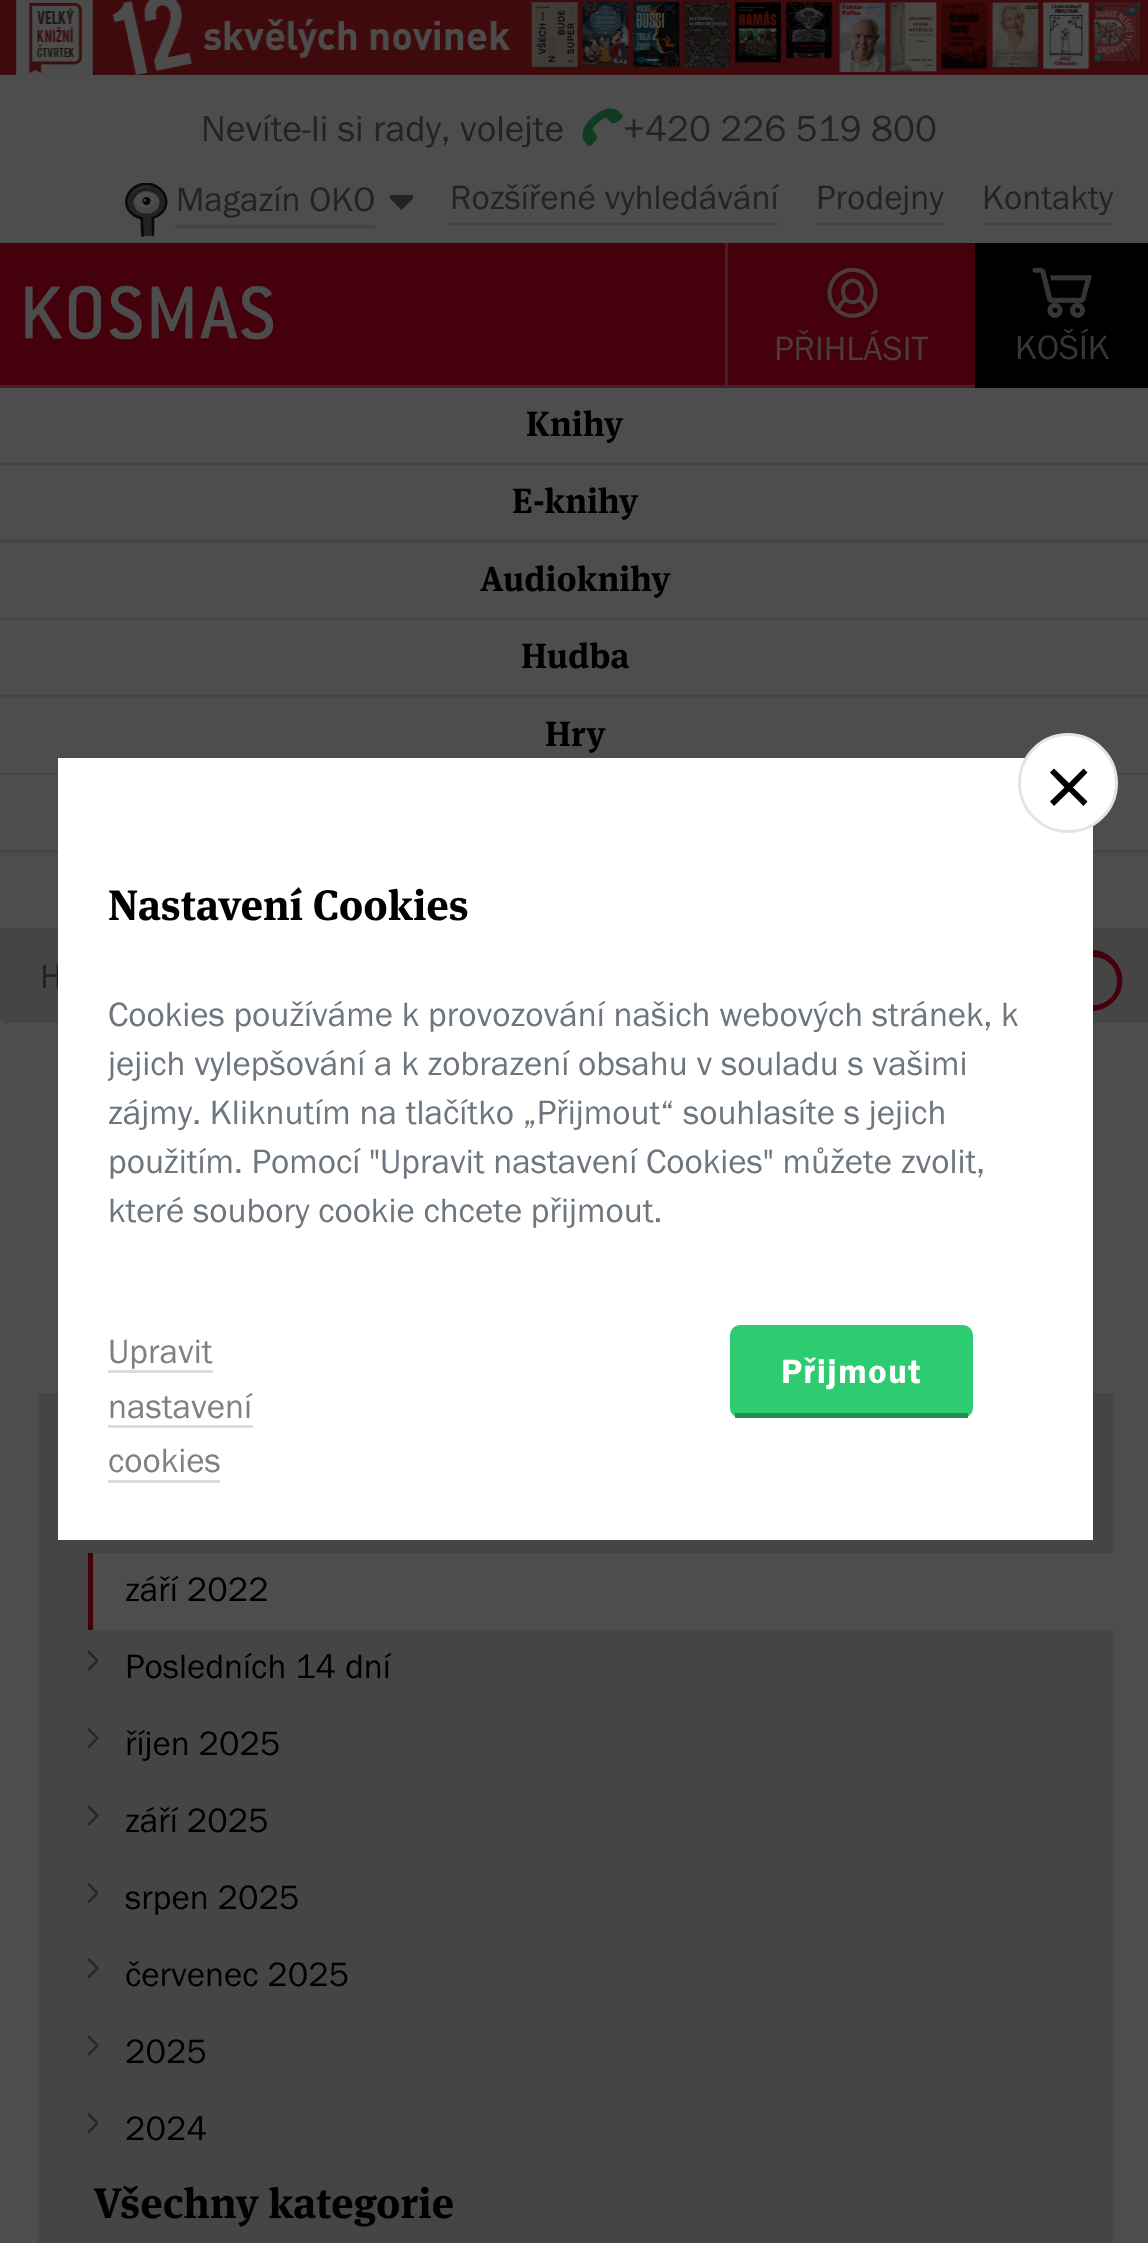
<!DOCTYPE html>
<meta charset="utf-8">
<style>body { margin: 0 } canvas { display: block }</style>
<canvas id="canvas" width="1148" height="2243"></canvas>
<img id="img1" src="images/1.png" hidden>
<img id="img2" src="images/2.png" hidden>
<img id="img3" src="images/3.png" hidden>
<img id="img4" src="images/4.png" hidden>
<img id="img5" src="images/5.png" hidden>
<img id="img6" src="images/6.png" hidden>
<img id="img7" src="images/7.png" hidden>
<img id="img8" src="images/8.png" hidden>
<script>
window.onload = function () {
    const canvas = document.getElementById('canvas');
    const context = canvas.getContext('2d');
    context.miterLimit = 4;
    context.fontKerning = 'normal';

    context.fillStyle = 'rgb(77, 77, 77)';
    context.fillRect(0, 0, 1148, 2243);
    context.drawImage(document.getElementById('img1'), 0, 0, 1148, 75);
    context.drawImage(document.getElementById('img2'), 582, 108, 41, 38);
    context.drawImage(document.getElementById('img3'), 125, 183, 43, 55);
    context.fillStyle = 'rgb(66, 66, 66)';
    context.fillRect(175, 225, 200, 3);
    context.fillStyle = 'rgb(33, 35, 38)';
    context.beginPath();
    context.moveTo(413, 198.5);
    context.lineTo(401.5, 210);
    context.lineTo(390, 198.5);
    context.lineTo(390, 195);
    context.lineTo(413, 195);
    context.closePath();
    context.fill();
    context.fillStyle = 'rgb(66, 66, 66)';
    context.fillRect(450, 223, 328, 2);
    context.fillRect(815, 223, 130, 2);
    context.fillRect(983, 223, 130, 2);
    context.fillStyle = 'rgb(68, 0, 11)';
    context.fillRect(0, 243, 975, 142);
    context.drawImage(document.getElementById('img4'), 25, 285, 249, 55);
    context.fillStyle = 'rgb(71, 30, 37)';
    context.fillRect(0, 385, 975, 3);
    context.fillRect(725, 243, 3, 145);
    context.drawImage(document.getElementById('img5'), 827, 267, 51, 51);
    context.fillStyle = 'rgb(0, 0, 0)';
    context.fillRect(975, 243, 173, 145);
    context.drawImage(document.getElementById('img6'), 1032, 267, 60, 51);
    context.fillStyle = 'rgb(68, 69, 70)';
    context.fillRect(0, 463, 1148, 2);
    context.fillRect(0, 540, 1148, 3);
    context.fillRect(0, 618, 1148, 2);
    context.fillRect(0, 695, 1148, 3);
    context.fillRect(0, 773, 1148, 2);
    context.fillRect(0, 850, 1148, 3);
    context.fillRect(0, 928, 1148, 2);
    context.strokeStyle = 'rgb(68, 69, 70)';
    context.lineWidth = 3;
    context.strokeRect(1.5, 931.5, 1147, 87);
    context.fillStyle = 'rgb(69, 69, 69)';
    context.fillRect(3, 933, 1144, 84);
    context.fillStyle = 'rgb(68, 69, 70)';
    context.fillRect(3, 1020, 1145, 3);
    context.fillStyle = 'rgb(68, 0, 11)';
    context.beginPath();
    context.moveTo(1059, 1018);
    context.lineTo(1073, 1004);
    context.bezierCurveTo(1087, 1016, 1108, 1012, 1118, 996);
    context.bezierCurveTo(1123, 988, 1124, 978, 1120, 969);
    context.bezierCurveTo(1117, 963, 1113, 958, 1107, 954);
    context.bezierCurveTo(1078, 938, 1048, 975, 1069, 1000);
    context.lineTo(1055, 1014);
    context.closePath();
    context.moveTo(1068, 981);
    context.bezierCurveTo(1068, 949, 1117, 949, 1117, 981);
    context.bezierCurveTo(1117, 1013, 1068, 1013, 1068, 981);
    context.closePath();
    context.fill();
    context.fillStyle = 'rgb(68, 69, 70)';
    context.fillRect(38, 1393, 1075, 850);
    context.fillStyle = 'rgb(77, 77, 77)';
    context.fillRect(93, 1553, 1020, 77);
    context.fillStyle = 'rgb(68, 0, 11)';
    context.fillRect(88, 1553, 5, 77);
    context.drawImage(document.getElementById('img7'), 87, 1650, 12, 21);
    context.drawImage(document.getElementById('img8'), 87, 1728, 12, 21);
    context.drawImage(document.getElementById('img7'), 87, 1805, 12, 21);
    context.drawImage(document.getElementById('img8'), 87, 1883, 12, 21);
    context.drawImage(document.getElementById('img8'), 87, 1958, 12, 21);
    context.drawImage(document.getElementById('img7'), 87, 2035, 12, 21);
    context.drawImage(document.getElementById('img8'), 87, 2113, 12, 21);
    context.font = '37.5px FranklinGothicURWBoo';
    context.fillStyle = 'rgb(33, 35, 38)';
    context.fillText('Nevíte-li si rady, volejte', 201, 141);
    context.fillText('+420 226 519 800', 623, 141);
    context.font = '35px FranklinGothicURWBoo';
    context.fillText('Magazín OKO', 176, 211);
    context.fillText('Rozšířené vyhledávání', 450, 209);
    context.fillText('Prodejny', 816, 209);
    context.fillText('Kontakty', 982, 209);
    context.fillStyle = 'rgb(74, 59, 62)';
    context.fillText('PŘIHLÁSIT', 774, 360);
    context.fillStyle = 'rgb(54, 54, 54)';
    context.fillText('KOŠÍK', 1015, 359);
    context.font = 'bold 35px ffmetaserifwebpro';
    context.fillStyle = 'rgb(0, 0, 0)';
    context.fillText('Knihy', 526, 436);
    context.fillText('E-knihy', 512, 513);
    context.fillText('Audioknihy', 480, 591);
    context.fillText('Hudba', 521, 668);
    context.fillText('Hry', 545, 746);
    context.font = '35px FranklinGothicURWBoo';
    context.fillStyle = 'rgb(33, 35, 38)';
    context.fillText('H', 40, 988);
    context.fillStyle = 'rgb(255, 255, 255)';
    context.fillRect(58, 758, 1035, 782);
    context.beginPath();
    context.arc(1068, 783, 48.5, 0, 2 * Math.PI);
    context.fill();
    context.strokeStyle = 'rgb(225, 229, 232)';
    context.stroke();
    context.fillStyle = 'rgb(0, 0, 0)';
    context.beginPath();
    context.moveTo(1087.5, 772.5);
    context.lineTo(1083.5, 768.5);
    context.lineTo(1069, 783);
    context.lineTo(1054, 768.5);
    context.lineTo(1050, 772.5);
    context.lineTo(1064.5, 787.5);
    context.lineTo(1050, 801.5);
    context.lineTo(1054, 806);
    context.lineTo(1069, 791.5);
    context.lineTo(1083.5, 806);
    context.lineTo(1087.5, 801.5);
    context.lineTo(1073, 787.5);
    context.closePath();
    context.fill();
    context.font = 'bold 42.5px ffmetaserifwebpro';
    context.fillText('Nastavení Cookies', 108, 920);
    context.font = '35px FranklinGothicURWBoo';
    context.fillStyle = 'rgb(109, 118, 126)';
    context.fillText('Cookies používáme k provozování našich webových stránek, k', 108, 1026);
    context.save();
    context.beginPath();
    context.rect(108, 808, 935, 682);
    context.clip();
    context.fillText('jejich vylepšování a k zobrazení obsahu v souladu s vašimi', 108, 1075);
    context.restore();
    context.fillText('zájmy. Kliknutím na tlačítko „Přijmout“ souhlasíte s jejich', 108, 1124);
    context.fillText('použitím. Pomocí "Upravit nastavení Cookies" můžete zvolit,', 108, 1173);
    context.fillText('které soubory cookie chcete přijmout.', 108, 1222);
    context.fillStyle = 'rgb(128, 128, 128)';
    context.fillText('Upravit', 108, 1363);
    context.fillStyle = 'rgb(220, 220, 221)';
    context.fillRect(108, 1370, 105, 3);
    context.fillStyle = 'rgb(128, 128, 128)';
    context.fillText('nastavení', 108, 1418);
    context.fillStyle = 'rgb(220, 220, 221)';
    context.fillRect(108, 1425, 145, 3);
    context.fillStyle = 'rgb(128, 128, 128)';
    context.fillText('cookies', 108, 1472);
    context.fillStyle = 'rgb(220, 220, 221)';
    context.fillRect(108, 1480, 112, 3);
    context.fillStyle = 'rgb(46, 204, 113)';
    context.beginPath();
    context.roundRect(730, 1325, 243, 93, 10);
    context.fill();
    context.fillStyle = 'rgb(32, 143, 79)';
    context.fillRect(735, 1413, 233, 5);
    context.letterSpacing = '1.25px';
    context.font = '35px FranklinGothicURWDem';
    context.fillStyle = 'rgb(255, 255, 255)';
    context.fillText('Přijmout', 781, 1383);
    context.letterSpacing = '0px';
    context.font = '35px FranklinGothicURWBoo';
    context.fillStyle = 'rgb(0, 0, 0)';
    context.fillText('září 2022', 125, 1601);
    context.fillText('Posledních 14 dní', 125, 1678);
    context.fillText('říjen 2025', 125, 1755);
    context.fillText('září 2025', 125, 1832);
    context.fillText('srpen 2025', 125, 1909);
    context.fillText('červenec 2025', 125, 1986);
    context.fillText('2025', 125, 2063);
    context.fillText('2024', 125, 2140);
    context.font = 'bold 42.5px ffmetaserifwebpro';
    context.fillText('Všechny kategorie', 93, 2218);
};
</script>
